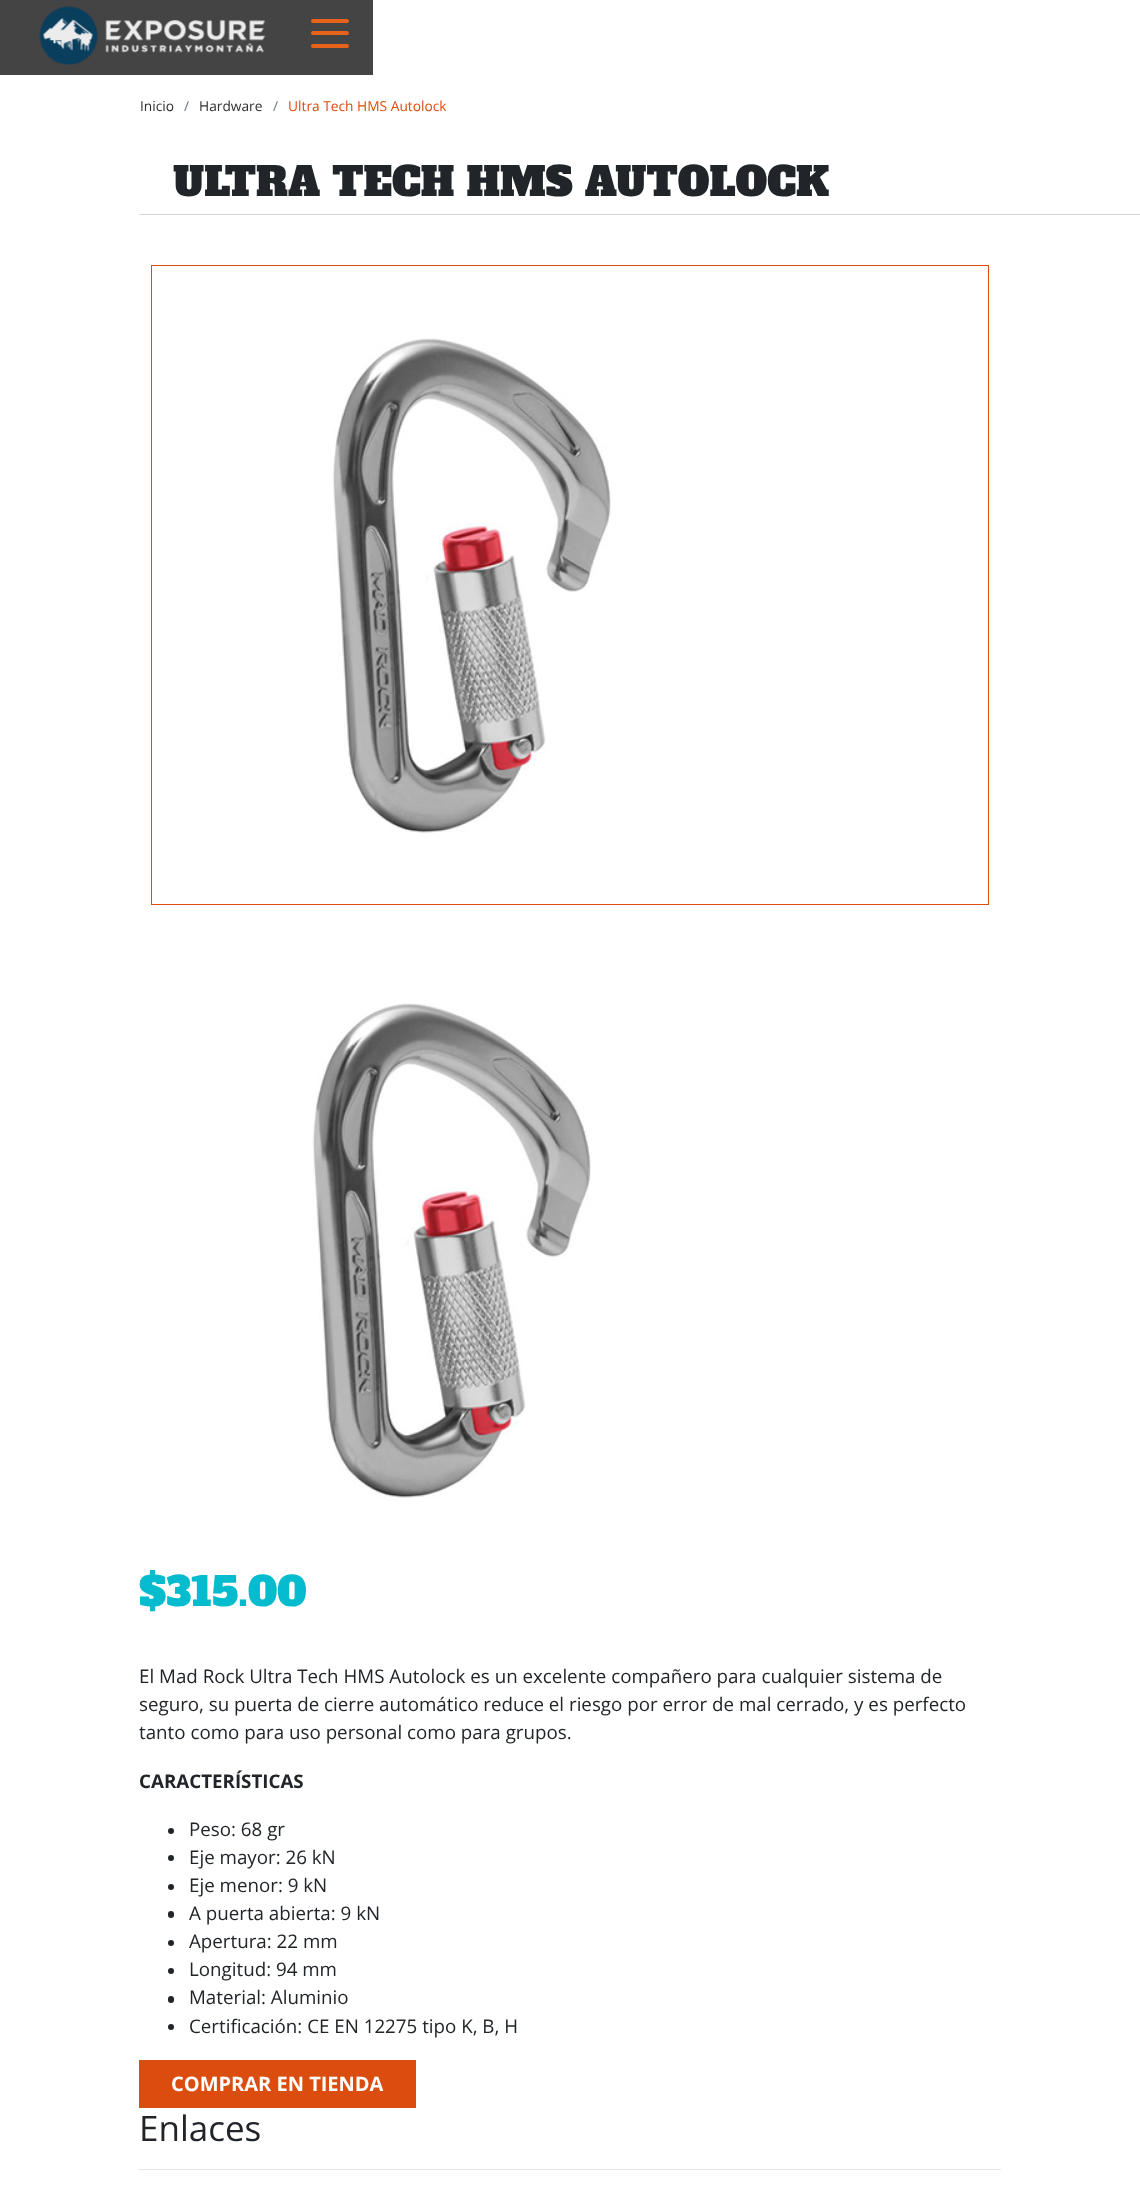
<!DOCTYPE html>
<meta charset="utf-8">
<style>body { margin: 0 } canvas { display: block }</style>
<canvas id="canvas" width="1140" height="2198"></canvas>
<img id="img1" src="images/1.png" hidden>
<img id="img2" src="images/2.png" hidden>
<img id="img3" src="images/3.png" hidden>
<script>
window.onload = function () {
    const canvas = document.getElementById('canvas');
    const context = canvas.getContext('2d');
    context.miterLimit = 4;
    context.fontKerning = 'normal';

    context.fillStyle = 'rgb(255, 255, 255)';
    context.fillRect(0, 0, 1140, 2198);
    context.fillStyle = 'rgb(68, 68, 69)';
    context.fillRect(0, 0, 373, 75);
    context.drawImage(document.getElementById('img1'), 39, 6, 227, 59);
    context.fillStyle = 'rgb(233, 98, 26)';
    context.beginPath();
    context.roundRect(311, 19, 38, 4, 2);
    context.fill();
    context.beginPath();
    context.roundRect(311, 31, 38, 4, 2);
    context.fill();
    context.beginPath();
    context.roundRect(311, 44, 38, 4, 2);
    context.fill();
    context.fillStyle = 'rgb(212, 212, 212)';
    context.fillRect(139, 214, 1001, 1);
    context.strokeStyle = 'rgb(218, 77, 14)';
    context.strokeRect(151.5, 265.5, 837, 639);
    context.drawImage(document.getElementById('img2'), 332, 338, 279, 495);
    context.drawImage(document.getElementById('img3'), 312, 1003, 279, 495);
    context.fillStyle = 'rgb(33, 37, 41)';
    context.beginPath();
    context.arc(171, 1831, 3, 0, 2 * Math.PI);
    context.fill();
    context.beginPath();
    context.arc(171, 1858, 3, 0, 2 * Math.PI);
    context.fill();
    context.beginPath();
    context.arc(171, 1887, 3, 0, 2 * Math.PI);
    context.fill();
    context.beginPath();
    context.roundRect(168, 1911, 6, 7, 3);
    context.fill();
    context.beginPath();
    context.arc(171, 1943, 3, 0, 2 * Math.PI);
    context.fill();
    context.beginPath();
    context.arc(171, 1971, 3, 0, 2 * Math.PI);
    context.fill();
    context.beginPath();
    context.roundRect(168, 1996, 6, 7, 3);
    context.fill();
    context.beginPath();
    context.arc(171, 2027, 3, 0, 2 * Math.PI);
    context.fill();
    context.fillStyle = 'rgb(218, 77, 14)';
    context.fillRect(139, 2060, 277, 48);
    context.fillStyle = 'rgb(230, 230, 230)';
    context.fillRect(139, 2169, 862, 1);
    context.font = '13.75px Open Sans';
    context.fillStyle = 'rgb(47, 47, 48)';
    context.fillText('Inicio', 140, 111);
    context.fillStyle = 'rgb(108, 117, 125)';
    context.fillText('/', 184, 111);
    context.fillStyle = 'rgb(47, 47, 48)';
    context.fillText('Hardware', 199, 111);
    context.fillStyle = 'rgb(108, 117, 125)';
    context.fillText('/', 273, 111);
    context.fillStyle = 'rgb(218, 77, 14)';
    context.fillText('Ultra Tech HMS Autolock', 288, 111);
    context.font = '40px Alfa Slab One';
    context.fillStyle = 'rgb(33, 37, 41)';
    context.fillText('ULTRA TECH HMS AUTOLOCK', 173, 196);
    context.fillStyle = 'rgb(4, 188, 205)';
    context.fillText('$315.00', 139, 1606);
    context.font = '18.75px Open Sans';
    context.fillStyle = 'rgb(33, 37, 41)';
    context.fillText('El Mad Rock Ultra Tech HMS Autolock es un excelente compañero para cualquier sistema de', 139, 1683);
    context.fillText('seguro, su puerta de cierre automático reduce el riesgo por error de mal cerrado, y es perfecto', 139, 1711);
    context.fillText('tanto como para uso personal como para grupos.', 139, 1739);
    context.font = 'bold 18.75px Open Sans';
    context.fillText('CARACTERÍSTICAS', 139, 1788);
    context.font = '18.75px Open Sans';
    context.fillText('Peso: 68 gr', 189, 1836);
    context.fillText('Eje mayor: 26 kN', 189, 1864);
    context.fillText('Eje menor: 9 kN', 189, 1892);
    context.fillText('A puerta abierta: 9 kN', 189, 1920);
    context.fillText('Apertura: 22 mm', 189, 1948);
    context.fillText('Longitud: 94 mm', 189, 1976);
    context.fillText('Material: Aluminio', 189, 2004);
    context.fillText('Certificación: CE EN 12275 tipo K, B, H', 189, 2033);
    context.font = 'bold 20px Open Sans';
    context.fillStyle = 'rgb(255, 255, 255)';
    context.fillText('COMPRAR EN TIENDA', 171, 2091);
    context.font = '35px Open Sans';
    context.fillStyle = 'rgb(33, 37, 41)';
    context.fillText('Enlaces', 139, 2141);
};
</script>
